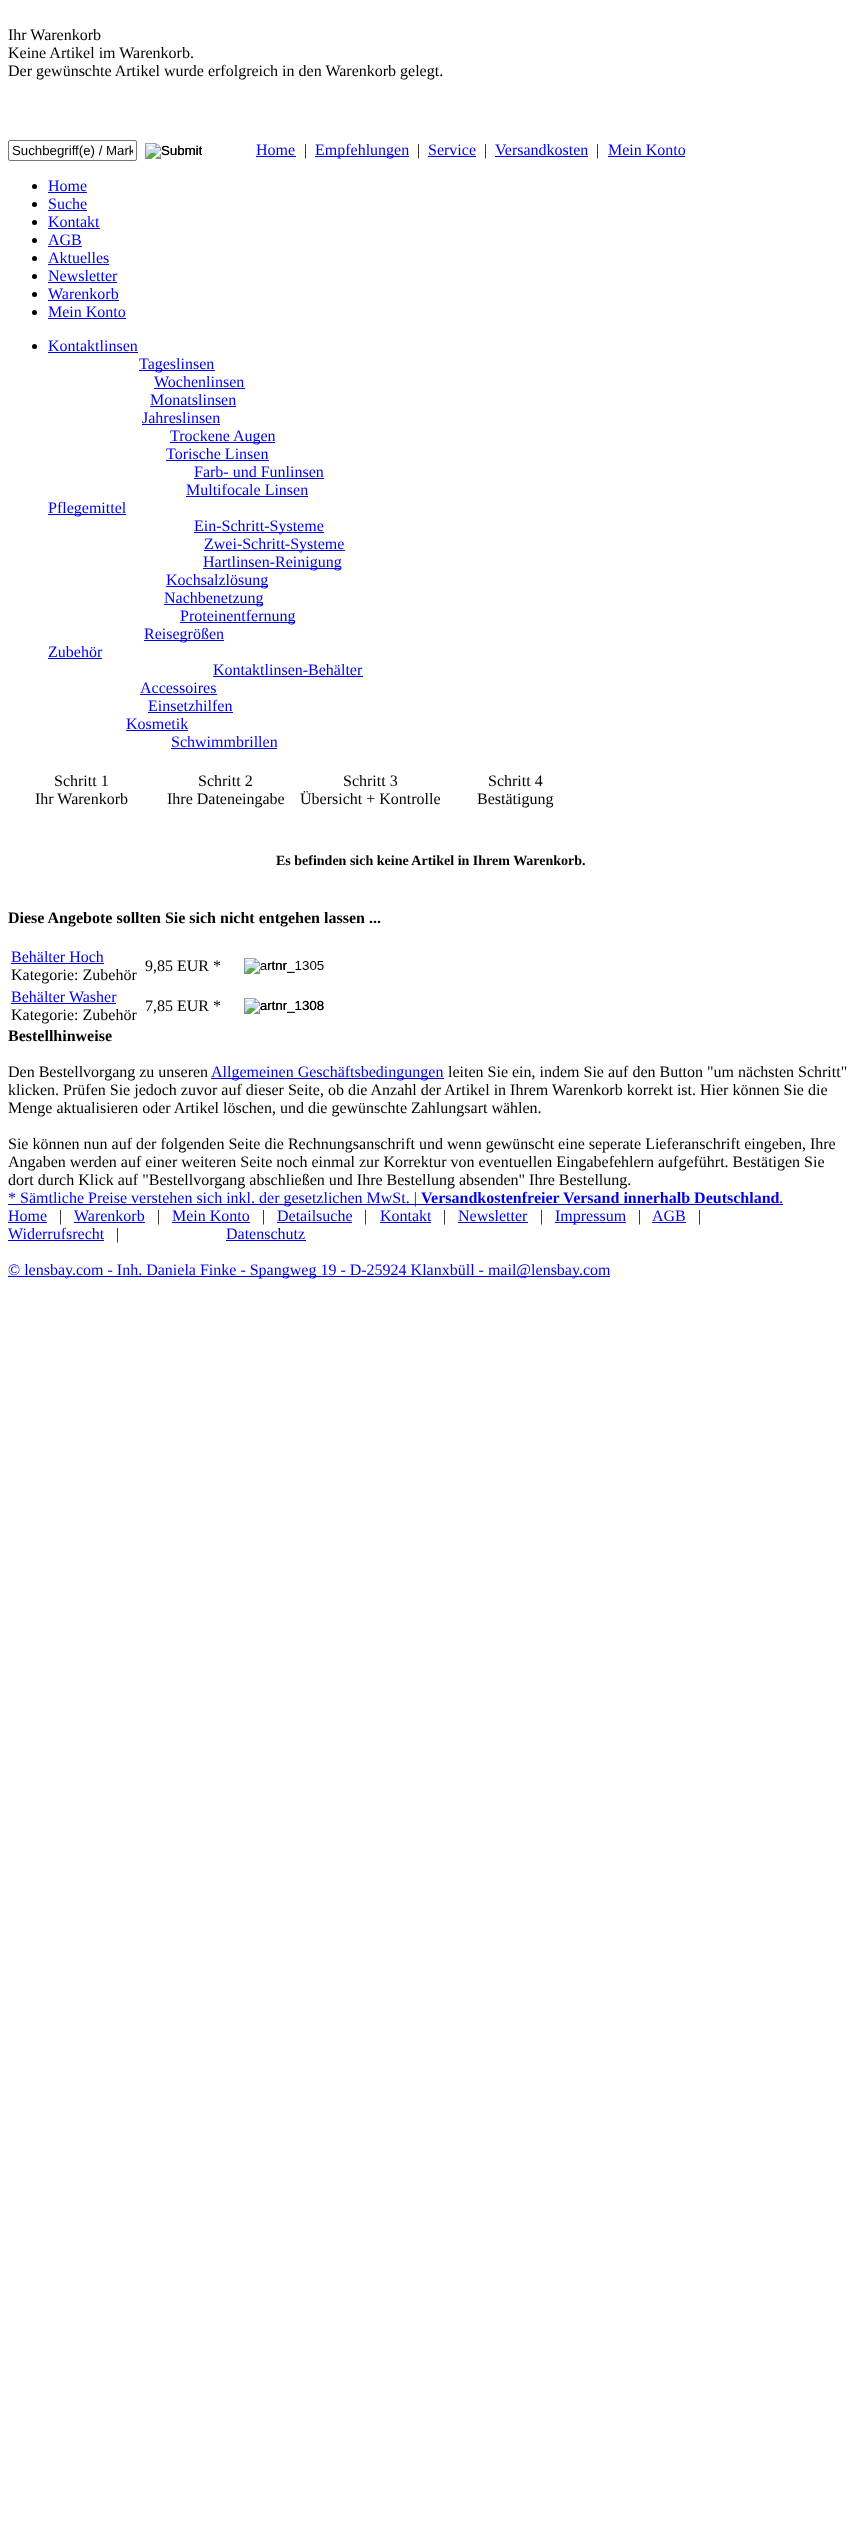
<!DOCTYPE html>
<meta charset="utf-8">
<style>body { margin: 0 } canvas { display: block }</style>
<canvas id="canvas" width="862" height="2543"></canvas>
<img id="img1" src="images/1.png" hidden>
<img id="img2" src="images/2.png" hidden>
<img id="img3" src="images/3.png" hidden>
<script>
window.onload = function () {
    const canvas = document.getElementById('canvas');
    const context = canvas.getContext('2d');
    context.miterLimit = 4;
    context.fontKerning = 'normal';

    context.fillStyle = 'rgb(255, 255, 255)';
    context.fillRect(0, 0, 862, 2543);
    context.beginPath();
    context.roundRect(8.5, 140.5, 128, 20, 1.5);
    context.strokeStyle = 'rgb(118, 118, 118)';
    context.stroke();
    context.drawImage(document.getElementById('img1'), 145, 143, 57, 16);
    context.fillStyle = 'rgb(0, 0, 238)';
    context.fillRect(256, 156, 40, 1);
    context.fillRect(315, 156, 94, 1);
    context.fillRect(428, 156, 48, 1);
    context.fillRect(495, 156, 93, 1);
    context.fillRect(608, 156, 77, 1);
    context.fillStyle = 'rgb(0, 0, 0)';
    context.beginPath();
    context.arc(34.5, 186.5, 2.5, 0, 2 * Math.PI);
    context.fill();
    context.fillStyle = 'rgb(0, 0, 238)';
    context.fillRect(48, 192, 39, 1);
    context.fillStyle = 'rgb(0, 0, 0)';
    context.beginPath();
    context.arc(34.5, 204.5, 2.5, 0, 2 * Math.PI);
    context.fill();
    context.fillStyle = 'rgb(0, 0, 238)';
    context.fillRect(48, 210, 39, 1);
    context.fillStyle = 'rgb(0, 0, 0)';
    context.beginPath();
    context.arc(34.5, 222.5, 2.5, 0, 2 * Math.PI);
    context.fill();
    context.fillStyle = 'rgb(0, 0, 238)';
    context.fillRect(48, 228, 52, 1);
    context.fillStyle = 'rgb(0, 0, 0)';
    context.beginPath();
    context.arc(34.5, 240.5, 2.5, 0, 2 * Math.PI);
    context.fill();
    context.fillStyle = 'rgb(0, 0, 238)';
    context.fillRect(48, 246, 34, 1);
    context.fillStyle = 'rgb(0, 0, 0)';
    context.beginPath();
    context.arc(34.5, 258.5, 2.5, 0, 2 * Math.PI);
    context.fill();
    context.fillStyle = 'rgb(0, 0, 238)';
    context.fillRect(48, 264, 61, 1);
    context.fillStyle = 'rgb(0, 0, 0)';
    context.beginPath();
    context.arc(34.5, 276.5, 2.5, 0, 2 * Math.PI);
    context.fill();
    context.fillStyle = 'rgb(0, 0, 238)';
    context.fillRect(48, 282, 69, 1);
    context.fillStyle = 'rgb(0, 0, 0)';
    context.beginPath();
    context.arc(34.5, 294.5, 2.5, 0, 2 * Math.PI);
    context.fill();
    context.fillStyle = 'rgb(0, 0, 238)';
    context.fillRect(48, 300, 71, 1);
    context.fillStyle = 'rgb(0, 0, 0)';
    context.beginPath();
    context.arc(34.5, 312.5, 2.5, 0, 2 * Math.PI);
    context.fill();
    context.fillStyle = 'rgb(0, 0, 238)';
    context.fillRect(48, 318, 78, 1);
    context.fillStyle = 'rgb(0, 0, 0)';
    context.beginPath();
    context.arc(34.5, 346.5, 2.5, 0, 2 * Math.PI);
    context.fill();
    context.fillStyle = 'rgb(0, 0, 238)';
    context.fillRect(48, 352, 90, 1);
    context.fillRect(139, 370, 76, 1);
    context.fillRect(154, 388, 91, 1);
    context.fillRect(150, 406, 86, 1);
    context.fillRect(142, 424, 78, 1);
    context.fillRect(170, 442, 105, 1);
    context.fillRect(166, 460, 103, 1);
    context.fillRect(194, 478, 130, 1);
    context.fillRect(186, 496, 122, 1);
    context.fillRect(48, 514, 78, 1);
    context.fillRect(194, 532, 130, 1);
    context.fillRect(204, 550, 141, 1);
    context.fillRect(203, 568, 138, 1);
    context.fillRect(166, 586, 102, 1);
    context.fillRect(164, 604, 99, 1);
    context.fillRect(180, 622, 115, 1);
    context.fillRect(144, 640, 80, 1);
    context.fillRect(48, 658, 54, 1);
    context.fillRect(213, 676, 150, 1);
    context.fillRect(140, 694, 77, 1);
    context.fillRect(148, 712, 85, 1);
    context.fillRect(126, 730, 62, 1);
    context.fillRect(171, 748, 106, 1);
    context.fillRect(11, 963, 93, 1);
    context.drawImage(document.getElementById('img2'), 244, 958, 80, 16);
    context.fillRect(11, 1003, 105, 1);
    context.drawImage(document.getElementById('img3'), 244, 998, 80, 16);
    context.fillRect(211, 1078, 233, 1);
    context.fillRect(8, 1204, 775, 1);
    context.fillRect(8, 1222, 39, 1);
    context.fillRect(74, 1222, 71, 1);
    context.fillRect(172, 1222, 78, 1);
    context.fillRect(277, 1222, 75, 1);
    context.fillRect(380, 1222, 51, 1);
    context.fillRect(458, 1222, 70, 1);
    context.fillRect(555, 1222, 71, 1);
    context.fillRect(652, 1222, 34, 1);
    context.fillRect(8, 1240, 96, 1);
    context.fillRect(226, 1240, 80, 1);
    context.fillRect(8, 1276, 602, 1);
    context.font = '16px Liberation Serif';
    context.fillStyle = 'rgb(0, 0, 0)';
    context.fillText('Ihr Warenkorb', 8, 40);
    context.fillText('Keine Artikel im Warenkorb.', 8, 58);
    context.fillText('Der gewünschte Artikel wurde erfolgreich in den Warenkorb gelegt.', 8, 76);
    context.save();
    context.beginPath();
    context.rect(12, 143, 121, 15);
    context.clip();
    context.font = '13.25px Liberation Sans';
    context.fillText('Suchbegriff(e) / Mark', 12, 155);
    context.restore();
    context.font = '13.25px Liberation Sans';
    context.fillText('Submit', 161, 155);
    context.font = '16px Liberation Serif';
    context.fillStyle = 'rgb(0, 0, 238)';
    context.fillText('Home', 256, 155);
    context.fillStyle = 'rgb(0, 0, 0)';
    context.fillText('|', 304, 155);
    context.fillStyle = 'rgb(0, 0, 238)';
    context.fillText('Empfehlungen', 315, 155);
    context.fillStyle = 'rgb(0, 0, 0)';
    context.fillText('|', 417, 155);
    context.fillStyle = 'rgb(0, 0, 238)';
    context.fillText('Service', 428, 155);
    context.fillStyle = 'rgb(0, 0, 0)';
    context.fillText('|', 484, 155);
    context.fillStyle = 'rgb(0, 0, 238)';
    context.fillText('Versandkosten', 495, 155);
    context.fillStyle = 'rgb(0, 0, 0)';
    context.fillText('|', 596, 155);
    context.fillStyle = 'rgb(0, 0, 238)';
    context.fillText('Mein Konto', 608, 155);
    context.fillText('Home', 48, 191);
    context.fillText('Suche', 48, 209);
    context.fillText('Kontakt', 48, 227);
    context.fillText('AGB', 48, 245);
    context.fillText('Aktuelles', 48, 263);
    context.fillText('Newsletter', 48, 281);
    context.fillText('Warenkorb', 48, 299);
    context.fillText('Mein Konto', 48, 317);
    context.fillText('Kontaktlinsen', 48, 351);
    context.fillText('Tageslinsen', 139, 369);
    context.fillText('Wochenlinsen', 154, 387);
    context.fillText('Monatslinsen', 150, 405);
    context.fillText('Jahreslinsen', 142, 423);
    context.fillText('Trockene Augen', 170, 441);
    context.fillText('Torische Linsen', 166, 459);
    context.fillText('Farb- und Funlinsen', 194, 477);
    context.fillText('Multifocale Linsen', 186, 495);
    context.fillText('Pflegemittel', 48, 513);
    context.fillText('Ein-Schritt-Systeme', 194, 531);
    context.fillText('Zwei-Schritt-Systeme', 204, 549);
    context.fillText('Hartlinsen-Reinigung', 203, 567);
    context.fillText('Kochsalzlösung', 166, 585);
    context.fillText('Nachbenetzung', 164, 603);
    context.fillText('Proteinentfernung', 180, 621);
    context.fillText('Reisegrößen', 144, 639);
    context.fillText('Zubehör', 48, 657);
    context.fillText('Kontaktlinsen-Behälter', 213, 675);
    context.fillText('Accessoires', 140, 693);
    context.fillText('Einsetzhilfen', 148, 711);
    context.fillText('Kosmetik', 126, 729);
    context.fillText('Schwimmbrillen', 171, 747);
    context.fillStyle = 'rgb(0, 0, 0)';
    context.fillText('Schritt 1', 54, 786);
    context.fillText('Ihr Warenkorb', 35, 804);
    context.fillText('Schritt 2', 198, 786);
    context.fillText('Ihre Dateneingabe', 167, 804);
    context.fillText('Schritt 3', 343, 786);
    context.fillText('Übersicht + Kontrolle', 300, 804);
    context.fillText('Schritt 4', 488, 786);
    context.fillText('Bestätigung', 477, 804);
    context.font = 'bold 14px Liberation Serif';
    context.fillText('Es befinden sich keine Artikel in Ihrem Warenkorb.', 276, 865);
    context.font = 'bold 16px Liberation Serif';
    context.fillText('Diese Angebote sollten Sie sich nicht entgehen lassen ...', 8, 923);
    context.font = '16px Liberation Serif';
    context.fillStyle = 'rgb(0, 0, 238)';
    context.fillText('Behälter Hoch', 11, 962);
    context.fillStyle = 'rgb(0, 0, 0)';
    context.fillText('Kategorie: Zubehör', 11, 980);
    context.fillText('9,85 EUR *', 145, 971);
    context.font = '13.25px Liberation Sans';
    context.fillText('rtnr_', 267, 970);
    context.font = '16px Liberation Serif';
    context.fillStyle = 'rgb(0, 0, 238)';
    context.fillText('Behälter Washer', 11, 1002);
    context.fillStyle = 'rgb(0, 0, 0)';
    context.fillText('Kategorie: Zubehör', 11, 1020);
    context.fillText('7,85 EUR *', 145, 1011);
    context.font = '13.25px Liberation Sans';
    context.fillText('artnr_1308', 260, 1010);
    context.font = 'bold 16px Liberation Serif';
    context.fillText('Bestellhinweise', 8, 1041);
    context.font = '16px Liberation Serif';
    context.fillText('Den Bestellvorgang zu unseren', 8, 1077);
    context.fillStyle = 'rgb(0, 0, 238)';
    context.fillText('Allgemeinen Geschäftsbedingungen', 211, 1077);
    context.fillStyle = 'rgb(0, 0, 0)';
    context.fillText('leiten Sie ein, indem Sie auf den Button "um nächsten Schritt"', 448, 1077);
    context.fillText('klicken. Prüfen Sie jedoch zuvor auf dieser Seite, ob die Anzahl der Artikel in Ihrem Warenkorb korrekt ist. Hier können Sie die', 8, 1095);
    context.fillText('Menge aktualisieren oder Artikel löschen, und die gewünschte Zahlungsart wählen.', 8, 1113);
    context.fillText('Sie können nun auf der folgenden Seite die Rechnungsanschrift und wenn gewünscht eine seperate Lieferanschrift eingeben, Ihre', 8, 1149);
    context.fillText('Angaben werden auf einer weiteren Seite noch einmal zur Korrektur von eventuellen Eingabefehlern aufgeführt. Bestätigen Sie', 8, 1167);
    context.fillText('dort durch Klick auf "Bestellvorgang abschließen und Ihre Bestellung absenden" Ihre Bestellung.', 8, 1185);
    context.fillStyle = 'rgb(0, 0, 238)';
    context.fillText('* Sämtliche Preise verstehen sich inkl. der gesetzlichen MwSt. |', 8, 1203);
    context.font = 'bold 16px Liberation Serif';
    context.fillText('Versandkostenfreier Versand innerhalb Deutschland', 421, 1203);
    context.font = '16px Liberation Serif';
    context.fillText('.', 779, 1203);
    context.fillText('Home', 8, 1221);
    context.fillStyle = 'rgb(0, 0, 0)';
    context.fillText('|', 59, 1221);
    context.fillStyle = 'rgb(0, 0, 238)';
    context.fillText('Warenkorb', 74, 1221);
    context.fillStyle = 'rgb(0, 0, 0)';
    context.fillText('|', 157, 1221);
    context.fillStyle = 'rgb(0, 0, 238)';
    context.fillText('Mein Konto', 172, 1221);
    context.fillStyle = 'rgb(0, 0, 0)';
    context.fillText('|', 262, 1221);
    context.fillStyle = 'rgb(0, 0, 238)';
    context.fillText('Detailsuche', 277, 1221);
    context.fillStyle = 'rgb(0, 0, 0)';
    context.fillText('|', 364, 1221);
    context.fillStyle = 'rgb(0, 0, 238)';
    context.fillText('Kontakt', 380, 1221);
    context.fillStyle = 'rgb(0, 0, 0)';
    context.fillText('|', 443, 1221);
    context.fillStyle = 'rgb(0, 0, 238)';
    context.fillText('Newsletter', 458, 1221);
    context.fillStyle = 'rgb(0, 0, 0)';
    context.fillText('|', 540, 1221);
    context.fillStyle = 'rgb(0, 0, 238)';
    context.fillText('Impressum', 555, 1221);
    context.fillStyle = 'rgb(0, 0, 0)';
    context.fillText('|', 638, 1221);
    context.fillStyle = 'rgb(0, 0, 238)';
    context.fillText('AGB', 652, 1221);
    context.fillStyle = 'rgb(0, 0, 0)';
    context.fillText('|', 698, 1221);
    context.fillStyle = 'rgb(0, 0, 238)';
    context.fillText('Widerrufsrecht', 8, 1239);
    context.fillStyle = 'rgb(0, 0, 0)';
    context.fillText('|', 116, 1239);
    context.fillStyle = 'rgb(0, 0, 238)';
    context.fillText('Datenschutz', 226, 1239);
    context.fillText('© lensbay.com - Inh. Daniela Finke - Spangweg 19 - D-25924 Klanxbüll - mail@lensbay.com', 8, 1275);
};
</script>
